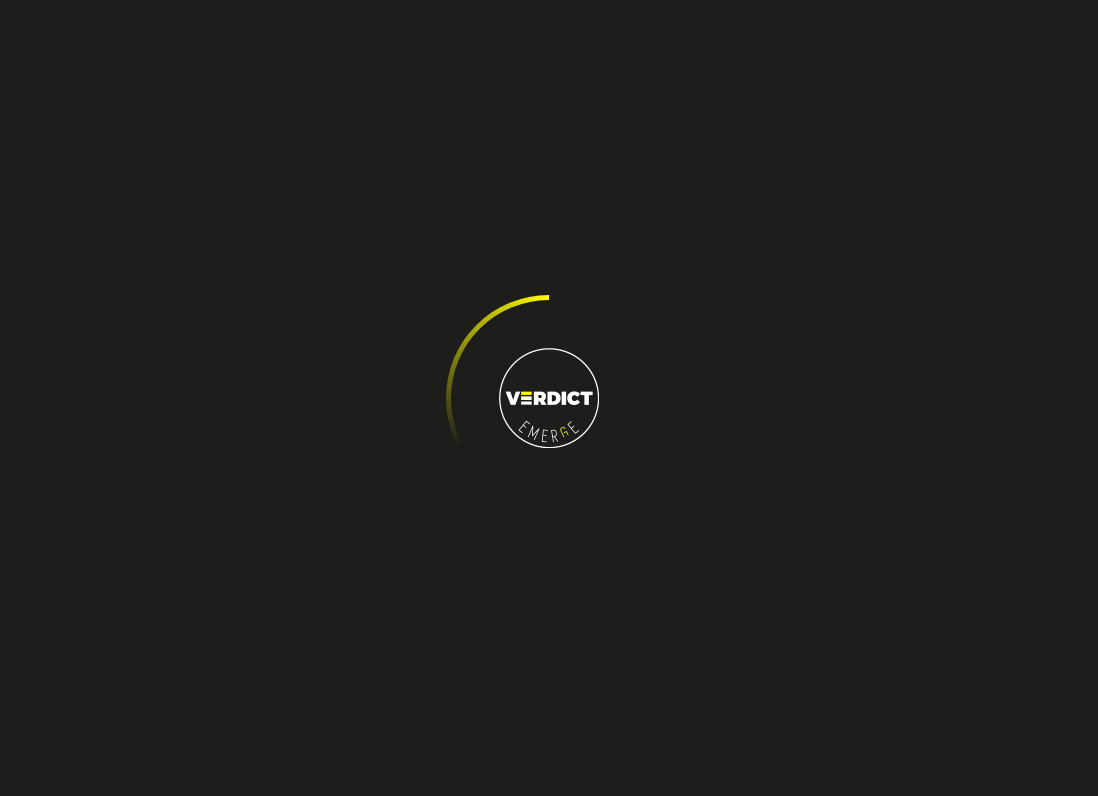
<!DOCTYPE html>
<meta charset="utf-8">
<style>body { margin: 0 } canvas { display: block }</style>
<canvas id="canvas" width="1098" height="796"></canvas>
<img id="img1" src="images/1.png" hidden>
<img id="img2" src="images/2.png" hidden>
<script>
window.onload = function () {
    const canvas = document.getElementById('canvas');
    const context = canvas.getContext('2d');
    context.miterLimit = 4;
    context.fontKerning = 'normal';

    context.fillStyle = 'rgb(29, 29, 27)';
    context.fillRect(0, 0, 1098, 796);
    context.drawImage(document.getElementById('img1'), 446, 295, 103, 149);
    context.beginPath();
    context.arc(549, 398, 98, 0, 2 * Math.PI);
    context.fill();
    context.drawImage(document.getElementById('img2'), 499, 348, 100, 100);
};
</script>
